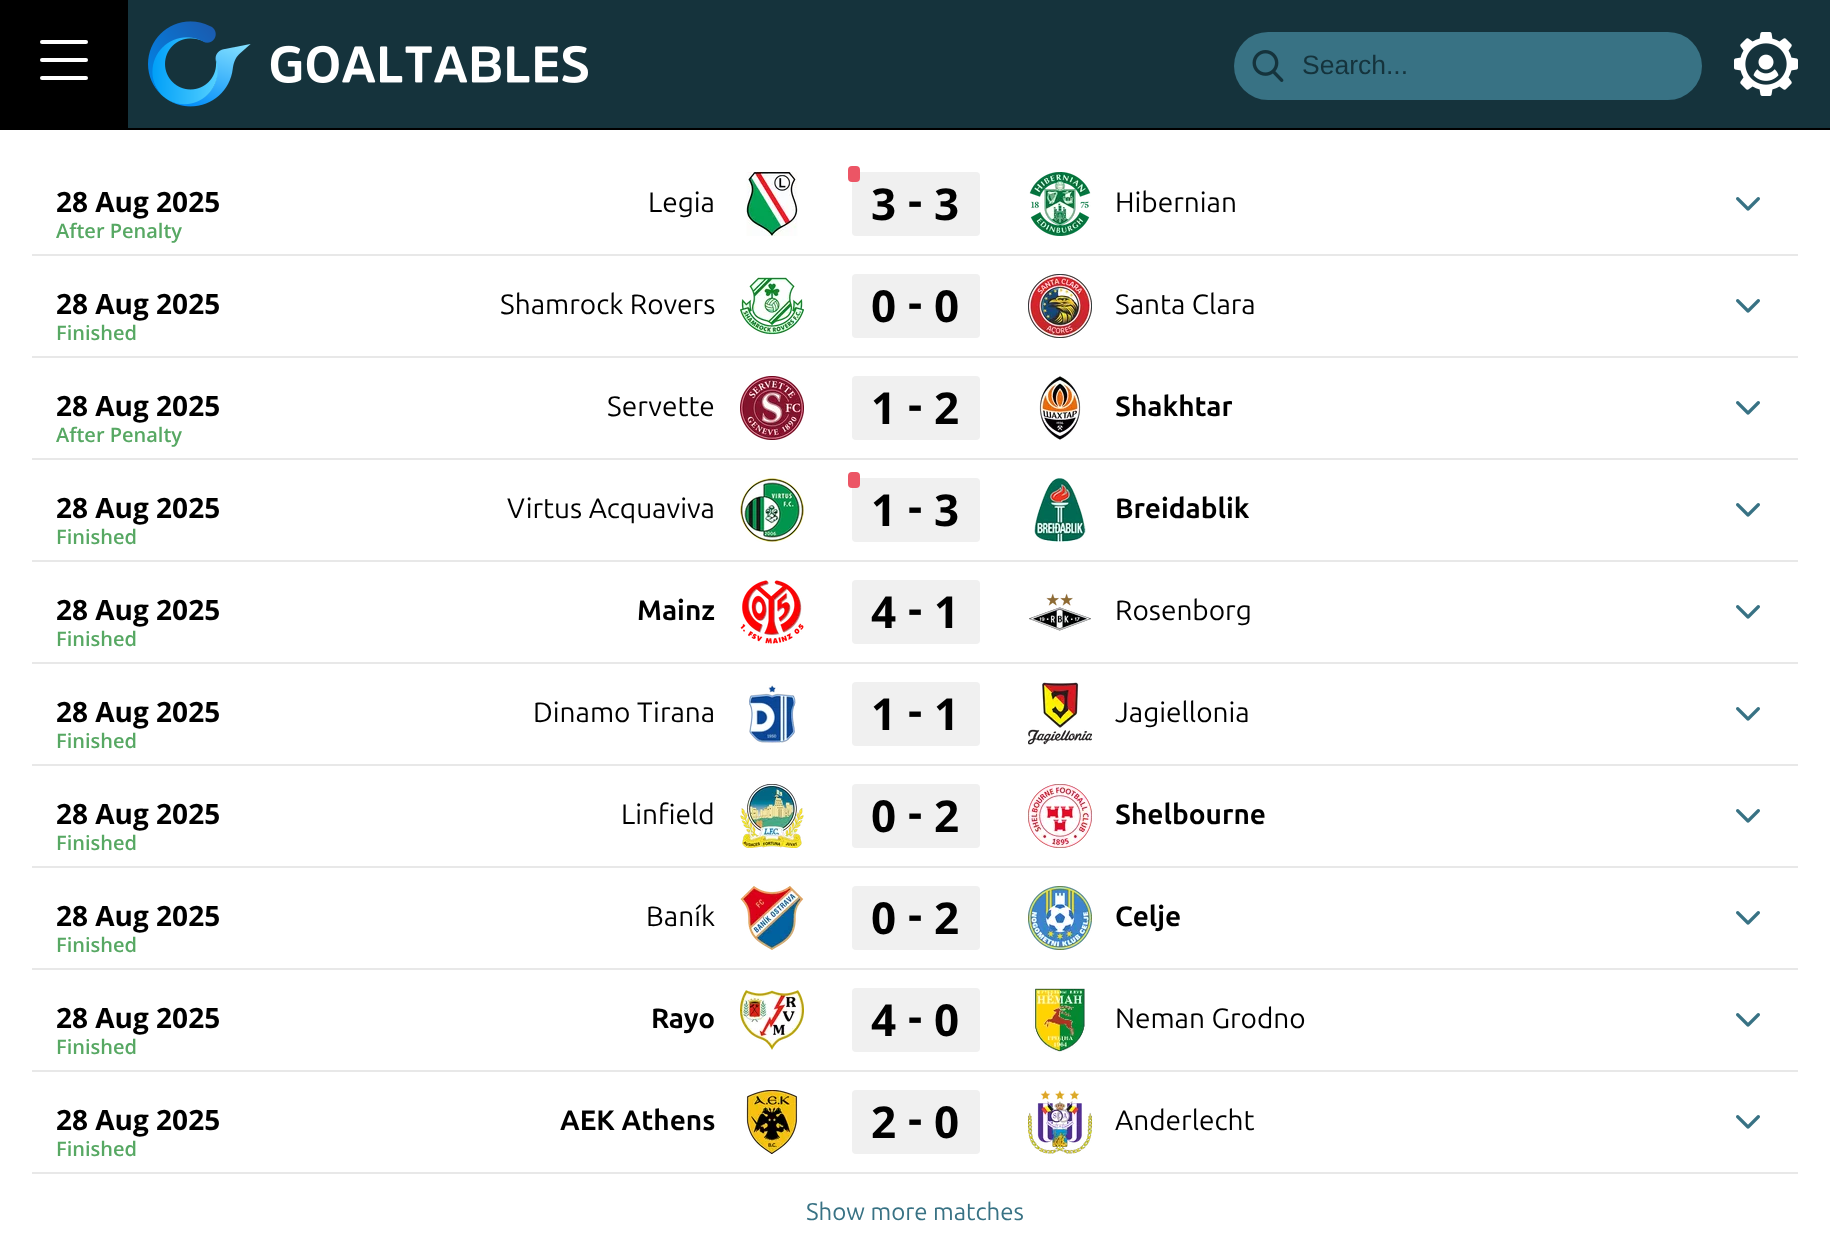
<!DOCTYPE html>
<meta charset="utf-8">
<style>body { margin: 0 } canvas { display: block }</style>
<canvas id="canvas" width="1830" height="1257"></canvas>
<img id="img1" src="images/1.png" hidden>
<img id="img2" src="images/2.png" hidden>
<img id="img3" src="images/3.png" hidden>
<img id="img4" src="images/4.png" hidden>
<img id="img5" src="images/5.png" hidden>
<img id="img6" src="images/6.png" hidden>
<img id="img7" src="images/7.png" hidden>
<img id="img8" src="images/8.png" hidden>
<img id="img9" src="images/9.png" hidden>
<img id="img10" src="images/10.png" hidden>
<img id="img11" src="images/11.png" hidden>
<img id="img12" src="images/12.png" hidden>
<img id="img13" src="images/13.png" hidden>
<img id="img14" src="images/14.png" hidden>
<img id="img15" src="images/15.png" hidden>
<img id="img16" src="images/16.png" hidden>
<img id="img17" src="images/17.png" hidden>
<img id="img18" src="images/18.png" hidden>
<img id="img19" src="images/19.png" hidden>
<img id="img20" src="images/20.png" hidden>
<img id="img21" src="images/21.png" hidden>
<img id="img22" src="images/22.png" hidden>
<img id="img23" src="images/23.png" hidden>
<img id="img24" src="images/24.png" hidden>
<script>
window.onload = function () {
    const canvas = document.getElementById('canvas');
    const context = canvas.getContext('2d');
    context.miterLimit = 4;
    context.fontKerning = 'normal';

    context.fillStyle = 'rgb(255, 255, 255)';
    context.fillRect(0, 0, 1830, 1257);
    context.fillStyle = 'rgb(21, 51, 60)';
    context.fillRect(128, 0, 1702, 128);
    context.fillStyle = 'rgb(0, 0, 0)';
    context.fillRect(0, 128, 1830, 2);
    context.fillRect(0, 0, 128, 128);
    context.fillStyle = 'rgb(255, 255, 255)';
    context.beginPath();
    context.roundRect(40, 40, 48, 4, 2);
    context.fill();
    context.beginPath();
    context.roundRect(40, 58, 48, 4, 2);
    context.fill();
    context.beginPath();
    context.roundRect(40, 76, 48, 4, 2);
    context.fill();
    context.drawImage(document.getElementById('img1'), 148, 21, 440, 86);
    context.fillStyle = 'rgb(56, 114, 132)';
    context.beginPath();
    context.roundRect(1234, 32, 468, 68, 34);
    context.fill();
    context.drawImage(document.getElementById('img2'), 1252, 50, 32, 32);
    context.drawImage(document.getElementById('img3'), 1734, 32, 64, 64);
    context.drawImage(document.getElementById('img4'), 746, 172, 52, 64);
    context.fillStyle = 'rgb(232, 232, 232)';
    context.fillRect(32, 254, 1766, 2);
    context.fillStyle = 'rgb(240, 240, 240)';
    context.beginPath();
    context.roundRect(852, 172, 128, 64, 4);
    context.fill();
    context.fillStyle = 'rgb(236, 85, 101)';
    context.beginPath();
    context.roundRect(848, 166, 12, 16, 4);
    context.fill();
    context.drawImage(document.getElementById('img5'), 1029, 172, 62, 64);
    context.drawImage(document.getElementById('img6'), 1736, 197, 24, 14);
    context.drawImage(document.getElementById('img7'), 740, 277, 64, 58);
    context.fillStyle = 'rgb(232, 232, 232)';
    context.fillRect(32, 356, 1766, 2);
    context.fillStyle = 'rgb(240, 240, 240)';
    context.beginPath();
    context.roundRect(852, 274, 128, 64, 4);
    context.fill();
    context.drawImage(document.getElementById('img8'), 1028, 274, 64, 64);
    context.drawImage(document.getElementById('img6'), 1736, 299, 24, 14);
    context.drawImage(document.getElementById('img9'), 740, 376, 64, 64);
    context.fillStyle = 'rgb(232, 232, 232)';
    context.fillRect(32, 458, 1766, 2);
    context.fillStyle = 'rgb(240, 240, 240)';
    context.beginPath();
    context.roundRect(852, 376, 128, 64, 4);
    context.fill();
    context.drawImage(document.getElementById('img10'), 1039, 376, 42, 64);
    context.drawImage(document.getElementById('img6'), 1736, 401, 24, 14);
    context.drawImage(document.getElementById('img11'), 740, 478, 64, 64);
    context.fillStyle = 'rgb(232, 232, 232)';
    context.fillRect(32, 560, 1766, 2);
    context.fillStyle = 'rgb(240, 240, 240)';
    context.beginPath();
    context.roundRect(852, 478, 128, 64, 4);
    context.fill();
    context.fillStyle = 'rgb(236, 85, 101)';
    context.beginPath();
    context.roundRect(848, 472, 12, 16, 4);
    context.fill();
    context.drawImage(document.getElementById('img12'), 1034, 478, 52, 64);
    context.drawImage(document.getElementById('img6'), 1736, 503, 24, 14);
    context.drawImage(document.getElementById('img13'), 740, 580, 64, 64);
    context.fillStyle = 'rgb(232, 232, 232)';
    context.fillRect(32, 662, 1766, 2);
    context.fillStyle = 'rgb(240, 240, 240)';
    context.beginPath();
    context.roundRect(852, 580, 128, 64, 4);
    context.fill();
    context.drawImage(document.getElementById('img14'), 1029, 593, 62, 38);
    context.drawImage(document.getElementById('img6'), 1736, 605, 24, 14);
    context.drawImage(document.getElementById('img15'), 749, 685, 47, 58);
    context.fillStyle = 'rgb(232, 232, 232)';
    context.fillRect(32, 764, 1766, 2);
    context.fillStyle = 'rgb(240, 240, 240)';
    context.beginPath();
    context.roundRect(852, 682, 128, 64, 4);
    context.fill();
    context.drawImage(document.getElementById('img16'), 1028, 682, 64, 63);
    context.drawImage(document.getElementById('img6'), 1736, 707, 24, 14);
    context.drawImage(document.getElementById('img17'), 740, 784, 64, 64);
    context.fillStyle = 'rgb(232, 232, 232)';
    context.fillRect(32, 866, 1766, 2);
    context.fillStyle = 'rgb(240, 240, 240)';
    context.beginPath();
    context.roundRect(852, 784, 128, 64, 4);
    context.fill();
    context.drawImage(document.getElementById('img18'), 1028, 784, 64, 64);
    context.drawImage(document.getElementById('img6'), 1736, 809, 24, 14);
    context.drawImage(document.getElementById('img19'), 740, 886, 64, 64);
    context.fillStyle = 'rgb(232, 232, 232)';
    context.fillRect(32, 968, 1766, 2);
    context.fillStyle = 'rgb(240, 240, 240)';
    context.beginPath();
    context.roundRect(852, 886, 128, 64, 4);
    context.fill();
    context.drawImage(document.getElementById('img20'), 1028, 886, 64, 64);
    context.drawImage(document.getElementById('img6'), 1736, 911, 24, 14);
    context.drawImage(document.getElementById('img21'), 740, 990, 64, 60);
    context.fillStyle = 'rgb(232, 232, 232)';
    context.fillRect(32, 1070, 1766, 2);
    context.fillStyle = 'rgb(240, 240, 240)';
    context.beginPath();
    context.roundRect(852, 988, 128, 64, 4);
    context.fill();
    context.drawImage(document.getElementById('img22'), 1033, 988, 53, 64);
    context.drawImage(document.getElementById('img6'), 1736, 1013, 24, 14);
    context.drawImage(document.getElementById('img23'), 746, 1090, 52, 64);
    context.fillStyle = 'rgb(232, 232, 232)';
    context.fillRect(32, 1172, 1766, 2);
    context.fillStyle = 'rgb(240, 240, 240)';
    context.beginPath();
    context.roundRect(852, 1090, 128, 64, 4);
    context.fill();
    context.drawImage(document.getElementById('img24'), 1028, 1090, 64, 64);
    context.drawImage(document.getElementById('img6'), 1736, 1115, 24, 14);
    context.font = '26.5px Liberation Sans';
    context.fillStyle = 'rgb(21, 51, 60)';
    context.fillText('Search...', 1302, 74);
    context.font = 'bold 28px Open Sans';
    context.fillStyle = 'rgb(0, 0, 0)';
    context.fillText('28 Aug 2025', 56, 212);
    context.font = '600 20px Open Sans';
    context.fillStyle = 'rgb(87, 168, 99)';
    context.fillText('After Penalty', 56, 238);
    context.font = '28px Ubuntu';
    context.fillStyle = 'rgb(0, 0, 0)';
    context.fillText('Legia', 648, 212);
    context.font = 'bold 44px Open Sans';
    context.fillText('3', 871, 220);
    context.fillText('-', 908, 216);
    context.fillText('3', 934, 220);
    context.font = '28px Ubuntu';
    context.fillText('Hibernian', 1115, 212);
    context.font = 'bold 28px Open Sans';
    context.fillText('28 Aug 2025', 56, 314);
    context.font = '600 20px Open Sans';
    context.fillStyle = 'rgb(87, 168, 99)';
    context.fillText('Finished', 56, 340);
    context.font = '28px Ubuntu';
    context.fillStyle = 'rgb(0, 0, 0)';
    context.fillText('Shamrock Rovers', 500, 314);
    context.font = 'bold 44px Open Sans';
    context.fillText('0', 871, 322);
    context.fillText('-', 908, 318);
    context.fillText('0', 934, 322);
    context.font = '28px Ubuntu';
    context.fillText('Santa Clara', 1115, 314);
    context.font = 'bold 28px Open Sans';
    context.fillText('28 Aug 2025', 56, 416);
    context.font = '600 20px Open Sans';
    context.fillStyle = 'rgb(87, 168, 99)';
    context.fillText('After Penalty', 56, 442);
    context.font = '28px Ubuntu';
    context.fillStyle = 'rgb(0, 0, 0)';
    context.fillText('Servette', 607, 416);
    context.font = 'bold 44px Open Sans';
    context.fillText('1', 871, 424);
    context.fillText('-', 908, 420);
    context.fillText('2', 934, 424);
    context.save();
    context.beginPath();
    context.rect(1116, 390, 116, 32);
    context.clip();
    context.font = 'bold 28px Ubuntu';
    context.fillText('Shakhtar', 1115, 416);
    context.restore();
    context.font = 'bold 28px Open Sans';
    context.fillText('28 Aug 2025', 56, 518);
    context.font = '600 20px Open Sans';
    context.fillStyle = 'rgb(87, 168, 99)';
    context.fillText('Finished', 56, 544);
    context.font = '28px Ubuntu';
    context.fillStyle = 'rgb(0, 0, 0)';
    context.fillText('Virtus Acquaviva', 507, 518);
    context.font = 'bold 44px Open Sans';
    context.fillText('1', 871, 526);
    context.fillText('-', 908, 522);
    context.fillText('3', 934, 526);
    context.font = 'bold 28px Ubuntu';
    context.fillText('Breidablik', 1115, 518);
    context.font = 'bold 28px Open Sans';
    context.fillText('28 Aug 2025', 56, 620);
    context.font = '600 20px Open Sans';
    context.fillStyle = 'rgb(87, 168, 99)';
    context.fillText('Finished', 56, 646);
    context.font = 'bold 28px Ubuntu';
    context.fillStyle = 'rgb(0, 0, 0)';
    context.fillText('Mainz', 637, 620);
    context.font = 'bold 44px Open Sans';
    context.fillText('4', 871, 628);
    context.fillText('-', 908, 624);
    context.fillText('1', 934, 628);
    context.font = '28px Ubuntu';
    context.fillText('Rosenborg', 1115, 620);
    context.font = 'bold 28px Open Sans';
    context.fillText('28 Aug 2025', 56, 722);
    context.font = '600 20px Open Sans';
    context.fillStyle = 'rgb(87, 168, 99)';
    context.fillText('Finished', 56, 748);
    context.font = '28px Ubuntu';
    context.fillStyle = 'rgb(0, 0, 0)';
    context.fillText('Dinamo Tirana', 533, 722);
    context.font = 'bold 44px Open Sans';
    context.fillText('1', 871, 730);
    context.fillText('-', 908, 726);
    context.fillText('1', 934, 730);
    context.font = '28px Ubuntu';
    context.fillText('Jagiellonia', 1115, 722);
    context.font = 'bold 28px Open Sans';
    context.fillText('28 Aug 2025', 56, 824);
    context.font = '600 20px Open Sans';
    context.fillStyle = 'rgb(87, 168, 99)';
    context.fillText('Finished', 56, 850);
    context.font = '28px Ubuntu';
    context.fillStyle = 'rgb(0, 0, 0)';
    context.fillText('Linfield', 621, 824);
    context.font = 'bold 44px Open Sans';
    context.fillText('0', 871, 832);
    context.fillText('-', 908, 828);
    context.fillText('2', 934, 832);
    context.font = 'bold 28px Ubuntu';
    context.fillText('Shelbourne', 1115, 824);
    context.font = 'bold 28px Open Sans';
    context.fillText('28 Aug 2025', 56, 926);
    context.font = '600 20px Open Sans';
    context.fillStyle = 'rgb(87, 168, 99)';
    context.fillText('Finished', 56, 952);
    context.font = '28px Ubuntu';
    context.fillStyle = 'rgb(0, 0, 0)';
    context.fillText('Baník', 646, 926);
    context.font = 'bold 44px Open Sans';
    context.fillText('0', 871, 934);
    context.fillText('-', 908, 930);
    context.fillText('2', 934, 934);
    context.font = 'bold 28px Ubuntu';
    context.fillText('Celje', 1115, 926);
    context.font = 'bold 28px Open Sans';
    context.fillText('28 Aug 2025', 56, 1028);
    context.font = '600 20px Open Sans';
    context.fillStyle = 'rgb(87, 168, 99)';
    context.fillText('Finished', 56, 1054);
    context.font = 'bold 28px Ubuntu';
    context.fillStyle = 'rgb(0, 0, 0)';
    context.fillText('Rayo', 651, 1028);
    context.font = 'bold 44px Open Sans';
    context.fillText('4', 871, 1036);
    context.fillText('-', 908, 1032);
    context.fillText('0', 934, 1036);
    context.font = '28px Ubuntu';
    context.fillText('Neman Grodno', 1115, 1028);
    context.font = 'bold 28px Open Sans';
    context.fillText('28 Aug 2025', 56, 1130);
    context.font = '600 20px Open Sans';
    context.fillStyle = 'rgb(87, 168, 99)';
    context.fillText('Finished', 56, 1156);
    context.font = 'bold 28px Ubuntu';
    context.fillStyle = 'rgb(0, 0, 0)';
    context.fillText('AEK Athens', 560, 1130);
    context.font = 'bold 44px Open Sans';
    context.fillText('2', 871, 1138);
    context.fillText('-', 908, 1134);
    context.fillText('0', 934, 1138);
    context.font = '28px Ubuntu';
    context.fillText('Anderlecht', 1115, 1130);
    context.font = '24px Ubuntu';
    context.fillStyle = 'rgb(56, 114, 132)';
    context.fillText('Show more matches', 806, 1220);
};
</script>
